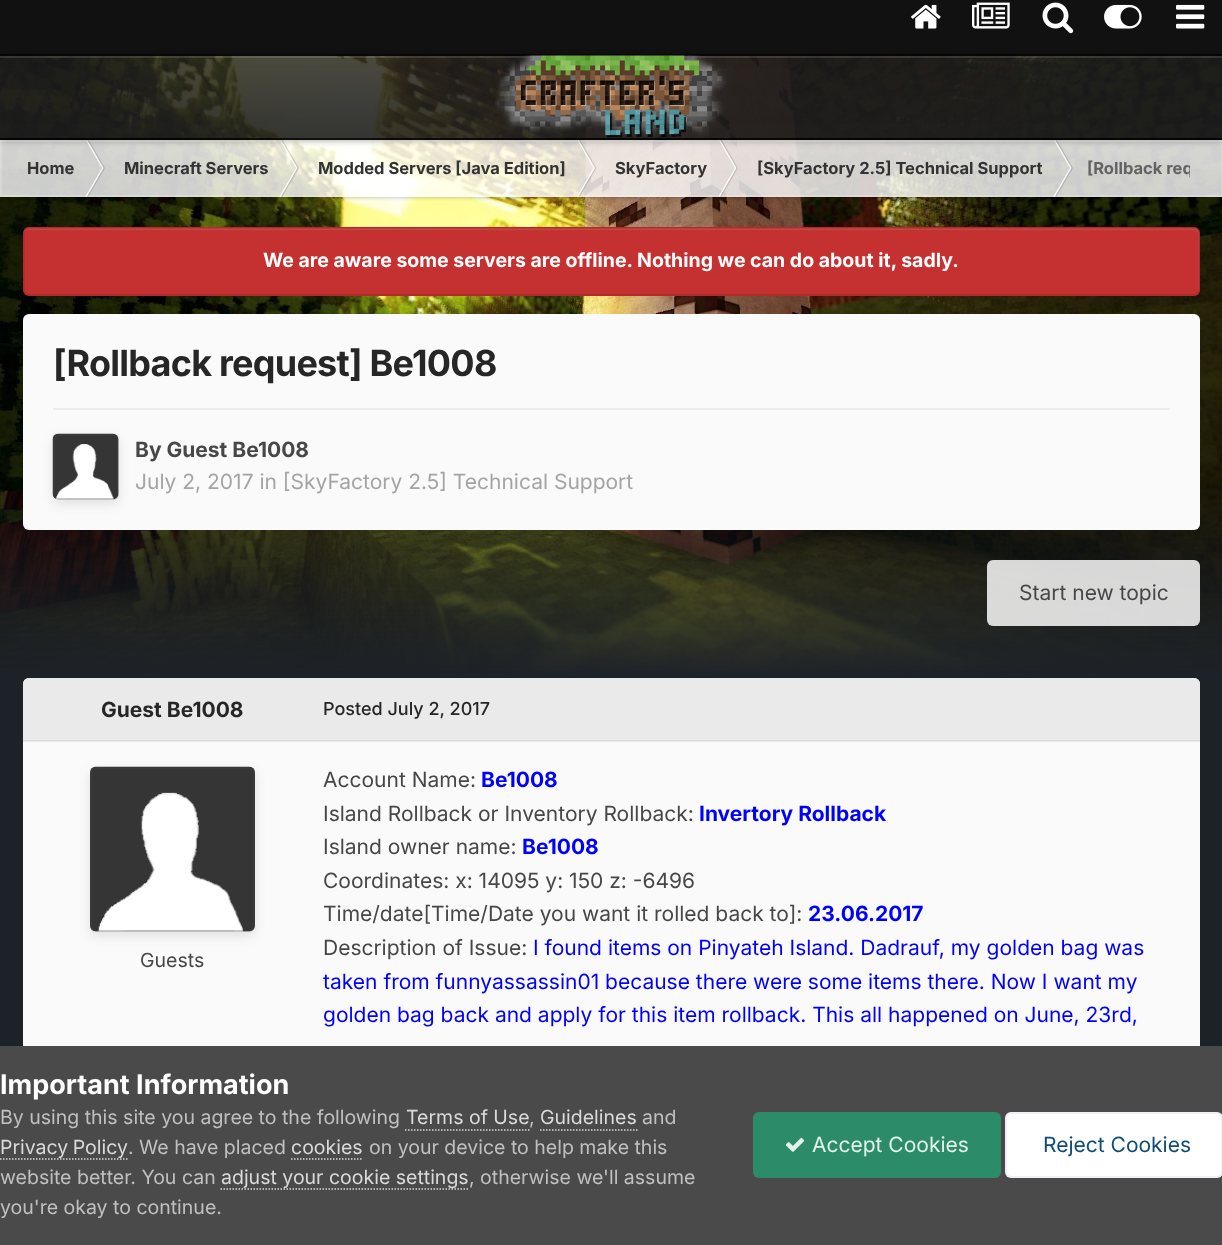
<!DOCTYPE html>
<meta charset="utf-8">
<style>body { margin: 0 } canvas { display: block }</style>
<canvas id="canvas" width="1222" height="1245"></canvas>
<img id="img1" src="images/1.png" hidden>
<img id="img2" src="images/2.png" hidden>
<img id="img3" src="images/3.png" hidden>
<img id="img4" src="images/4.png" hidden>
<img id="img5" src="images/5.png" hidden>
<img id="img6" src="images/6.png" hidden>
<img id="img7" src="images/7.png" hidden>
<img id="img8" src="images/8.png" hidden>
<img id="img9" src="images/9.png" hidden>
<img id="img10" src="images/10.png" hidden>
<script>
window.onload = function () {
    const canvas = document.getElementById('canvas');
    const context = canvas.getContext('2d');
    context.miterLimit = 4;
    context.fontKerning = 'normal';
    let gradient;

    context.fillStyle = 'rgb(29, 34, 41)';
    context.fillRect(0, 0, 1222, 1245);
    context.drawImage(document.getElementById('img1'), 0, 54, 1222, 633);
    context.fillStyle = 'rgb(17, 17, 17)';
    context.fillRect(0, 0, 1222, 54);
    context.drawImage(document.getElementById('img2'), 911, 4, 30, 25);
    context.drawImage(document.getElementById('img3'), 972, 2, 38, 27);
    context.drawImage(document.getElementById('img4'), 1042, 2, 32, 32);
    context.drawImage(document.getElementById('img5'), 1104, 4, 38, 25);
    context.drawImage(document.getElementById('img6'), 1176, 4, 29, 25);
    context.save();
    context.beginPath();
    context.moveTo(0, 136);
    context.lineTo(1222, 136);
    context.lineTo(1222, 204);
    context.lineTo(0, 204);
    context.closePath();
    context.moveTo(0, 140);
    context.lineTo(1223, 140);
    context.lineTo(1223, 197);
    context.lineTo(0, 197);
    context.closePath();
    context.clip('evenodd');
    context.fillStyle = 'rgba(0, 0, 0, 0.3)';
    context.filter = 'blur(2px)';
    context.beginPath();
    context.rect(2, 143, 1219, 54);
    context.fill();
    context.filter = 'none';
    context.restore();
    context.fillStyle = 'rgba(255, 255, 255, 0.8)';
    context.fillRect(0, 140, 1222, 57);
    gradient = context.createLinearGradient(611, 139, 611, 197);
    gradient.addColorStop(0, 'rgba(255, 255, 255, 0.1)');
    gradient.addColorStop(1, 'rgba(255, 255, 255, 0)');
    context.fillStyle = gradient;
    context.fillRect(0, 140, 1222, 29);
    context.strokeStyle = 'rgba(255, 255, 255, 0.2)';
    context.lineWidth = 2;
    context.strokeRect(1, 141, 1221, 55);
    context.fillStyle = 'rgba(255, 255, 255, 0.4)';
    context.fillRect(0, 140, 1222, 2);
    context.save();
    context.beginPath();
    context.rect(0, 140, 1190, 57);
    context.clip();
    context.fillStyle = 'rgb(255, 255, 255)';
    context.beginPath();
    context.moveTo(85.5, 139.5);
    context.lineTo(87, 139.5);
    context.lineTo(103.5, 168);
    context.lineTo(102, 168);
    context.closePath();
    context.fill();
    context.restore();
    context.fillStyle = 'rgba(71, 71, 71, 0.2)';
    context.beginPath();
    context.moveTo(87, 139.5);
    context.lineTo(88.5, 139.5);
    context.lineTo(105, 168);
    context.lineTo(103.5, 168);
    context.closePath();
    context.fill();
    context.save();
    context.beginPath();
    context.rect(0, 140, 1190, 57);
    context.clip();
    context.fillStyle = 'rgb(255, 255, 255)';
    context.beginPath();
    context.moveTo(279.5, 139.5);
    context.lineTo(281, 139.5);
    context.lineTo(297.5, 168);
    context.lineTo(296, 168);
    context.closePath();
    context.fill();
    context.restore();
    context.beginPath();
    context.moveTo(281, 139.5);
    context.lineTo(282.5, 139.5);
    context.lineTo(299, 168);
    context.lineTo(297.5, 168);
    context.closePath();
    context.fill();
    context.fillStyle = 'rgb(255, 255, 255)';
    context.beginPath();
    context.moveTo(577, 139.5);
    context.lineTo(578.5, 139.5);
    context.lineTo(595, 168);
    context.lineTo(593.5, 168);
    context.closePath();
    context.fill();
    context.fillStyle = 'rgba(71, 71, 71, 0.2)';
    context.beginPath();
    context.moveTo(578.5, 139.5);
    context.lineTo(580, 139.5);
    context.lineTo(596.5, 168);
    context.lineTo(595, 168);
    context.closePath();
    context.fill();
    context.save();
    context.beginPath();
    context.rect(0, 140, 1190, 57);
    context.clip();
    context.fillStyle = 'rgb(255, 255, 255)';
    context.beginPath();
    context.moveTo(718.5, 139.5);
    context.lineTo(720, 139.5);
    context.lineTo(736.5, 168);
    context.lineTo(735, 168);
    context.closePath();
    context.fill();
    context.restore();
    context.beginPath();
    context.moveTo(720, 139.5);
    context.lineTo(721.5, 139.5);
    context.lineTo(738, 168);
    context.lineTo(736.5, 168);
    context.closePath();
    context.fill();
    context.save();
    context.beginPath();
    context.rect(0, 140, 1190, 57);
    context.clip();
    context.fillStyle = 'rgb(255, 255, 255)';
    context.beginPath();
    context.moveTo(1053.5, 139.5);
    context.lineTo(1055, 139.5);
    context.lineTo(1071.5, 168);
    context.lineTo(1070, 168);
    context.closePath();
    context.fill();
    context.restore();
    context.beginPath();
    context.moveTo(1055, 139.5);
    context.lineTo(1056.5, 139.5);
    context.lineTo(1073, 168);
    context.lineTo(1071.5, 168);
    context.closePath();
    context.fill();
    context.save();
    context.beginPath();
    context.moveTo(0, 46);
    context.lineTo(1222, 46);
    context.lineTo(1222, 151);
    context.lineTo(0, 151);
    context.closePath();
    context.moveTo(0, 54);
    context.lineTo(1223, 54);
    context.lineTo(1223, 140);
    context.lineTo(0, 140);
    context.closePath();
    context.clip('evenodd');
    context.fillStyle = 'rgba(0, 0, 0, 0.3)';
    context.filter = 'blur(3px)';
    context.beginPath();
    context.rect(0, 56, 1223, 85);
    context.fill();
    context.filter = 'none';
    context.restore();
    gradient = context.createLinearGradient(611, 138, 611, 221);
    gradient.addColorStop(0, 'rgba(30, 30, 30, 0.8)');
    gradient.addColorStop(1, 'rgba(30, 30, 30, 0.9)');
    context.fillStyle = gradient;
    context.fillRect(0, 138, 1222, 2);
    context.fillStyle = 'rgba(255, 255, 255, 0.12)';
    context.fillRect(0, 56, 1222, 2);
    context.fillStyle = 'rgba(0, 0, 0, 0.8)';
    context.fillRect(0, 54, 1222, 2);
    context.fillRect(0, 138, 1222, 2);
    context.drawImage(document.getElementById('img7'), 495, 55, 232, 83);
    context.fillStyle = 'rgb(255, 255, 255)';
    context.beginPath();
    context.moveTo(85.5, 196.5);
    context.lineTo(87, 196.5);
    context.lineTo(103.5, 168);
    context.lineTo(102, 168);
    context.closePath();
    context.fill();
    context.fillStyle = 'rgba(71, 71, 71, 0.2)';
    context.beginPath();
    context.moveTo(87, 196.5);
    context.lineTo(88.5, 196.5);
    context.lineTo(105, 168);
    context.lineTo(103.5, 168);
    context.closePath();
    context.fill();
    context.fillStyle = 'rgb(255, 255, 255)';
    context.beginPath();
    context.moveTo(279.5, 196.5);
    context.lineTo(281, 196.5);
    context.lineTo(297.5, 168);
    context.lineTo(296, 168);
    context.closePath();
    context.fill();
    context.fillStyle = 'rgba(71, 71, 71, 0.2)';
    context.beginPath();
    context.moveTo(281, 196.5);
    context.lineTo(282.5, 196.5);
    context.lineTo(299, 168);
    context.lineTo(297.5, 168);
    context.closePath();
    context.fill();
    context.fillStyle = 'rgb(255, 255, 255)';
    context.beginPath();
    context.moveTo(577, 196.5);
    context.lineTo(578.5, 196.5);
    context.lineTo(595, 168);
    context.lineTo(593.5, 168);
    context.closePath();
    context.fill();
    context.fillStyle = 'rgba(71, 71, 71, 0.2)';
    context.beginPath();
    context.moveTo(578.5, 196.5);
    context.lineTo(580, 196.5);
    context.lineTo(596.5, 168);
    context.lineTo(595, 168);
    context.closePath();
    context.fill();
    context.fillStyle = 'rgb(255, 255, 255)';
    context.beginPath();
    context.moveTo(718.5, 196.5);
    context.lineTo(720, 196.5);
    context.lineTo(736.5, 168);
    context.lineTo(735, 168);
    context.closePath();
    context.fill();
    context.fillStyle = 'rgba(71, 71, 71, 0.2)';
    context.beginPath();
    context.moveTo(720, 196.5);
    context.lineTo(721.5, 196.5);
    context.lineTo(738, 168);
    context.lineTo(736.5, 168);
    context.closePath();
    context.fill();
    context.fillStyle = 'rgb(255, 255, 255)';
    context.beginPath();
    context.moveTo(1053.5, 196.5);
    context.lineTo(1055, 196.5);
    context.lineTo(1071.5, 168);
    context.lineTo(1070, 168);
    context.closePath();
    context.fill();
    context.fillStyle = 'rgba(71, 71, 71, 0.2)';
    context.beginPath();
    context.moveTo(1055, 196.5);
    context.lineTo(1056.5, 196.5);
    context.lineTo(1073, 168);
    context.lineTo(1071.5, 168);
    context.closePath();
    context.fill();
    context.fillStyle = 'rgb(197, 48, 48)';
    context.beginPath();
    context.roundRect(23, 227, 1177, 69, 6);
    context.fill();
    context.fillStyle = 'rgb(203, 69, 69)';
    context.beginPath();
    context.moveTo(28, 230);
    context.lineTo(1194, 230);
    context.bezierCurveTo(1196, 230, 1198, 232, 1198, 234);
    context.lineTo(1198, 292);
    context.bezierCurveTo(1199, 291, 1199, 290, 1199, 289);
    context.lineTo(1199, 233);
    context.bezierCurveTo(1199, 230, 1197, 228, 1194, 228);
    context.lineTo(29, 228);
    context.bezierCurveTo(26, 228, 24, 230, 24, 233);
    context.lineTo(24, 234);
    context.bezierCurveTo(24, 232, 26, 230, 28, 230);
    context.closePath();
    context.fill();
    context.beginPath();
    context.roundRect(24, 228, 1175, 67, 5);
    context.strokeStyle = 'rgba(0, 0, 0, 0.1)';
    context.stroke();
    context.fillStyle = 'rgb(250, 250, 250)';
    context.beginPath();
    context.roundRect(23, 314, 1177, 216, 6);
    context.fill();
    context.fillStyle = 'rgb(236, 236, 236)';
    context.fillRect(53, 408, 1117, 2);
    context.drawImage(document.getElementById('img8'), 52, 433, 67, 67);
    context.save();
    context.beginPath();
    context.moveTo(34, 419);
    context.lineTo(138, 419);
    context.lineTo(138, 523);
    context.lineTo(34, 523);
    context.closePath();
    context.moveTo(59, 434);
    context.lineTo(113, 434);
    context.bezierCurveTo(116.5, 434, 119, 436.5, 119, 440);
    context.lineTo(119, 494);
    context.bezierCurveTo(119, 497.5, 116.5, 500, 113, 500);
    context.lineTo(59, 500);
    context.bezierCurveTo(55.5, 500, 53, 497.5, 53, 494);
    context.lineTo(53, 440);
    context.bezierCurveTo(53, 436.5, 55.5, 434, 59, 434);
    context.closePath();
    context.clip('evenodd');
    context.fillStyle = 'rgba(0, 0, 0, 0.1)';
    context.filter = 'blur(6px)';
    context.beginPath();
    context.roundRect(53, 438, 66, 66, 6);
    context.fill();
    context.filter = 'none';
    context.restore();
    context.beginPath();
    context.roundRect(54, 435, 64, 64, 5);
    context.strokeStyle = 'rgba(71, 71, 71, 0.3)';
    context.stroke();
    context.fillStyle = 'rgba(250, 250, 250, 0.85)';
    context.beginPath();
    context.roundRect(987, 560, 213, 66, 6);
    context.fill();
    context.fillStyle = 'rgb(250, 250, 250)';
    context.beginPath();
    context.roundRect(23, 678, 1177, 417, 6);
    context.fill();
    context.fillStyle = 'rgb(232, 232, 232)';
    context.fillRect(23, 741, 1177, 1);
    context.fillStyle = 'rgb(234, 234, 234)';
    context.beginPath();
    context.roundRect(23, 678, 1177, 63, [6, 6, 0, 0]);
    context.fill();
    context.fillStyle = 'rgb(218, 218, 218)';
    context.fillRect(23, 740, 1177, 1);
    context.drawImage(document.getElementById('img9'), 90, 766, 165, 166);
    context.save();
    context.beginPath();
    context.moveTo(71, 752);
    context.lineTo(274, 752);
    context.lineTo(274, 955);
    context.lineTo(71, 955);
    context.closePath();
    context.moveTo(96, 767);
    context.lineTo(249, 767);
    context.bezierCurveTo(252.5, 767, 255, 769.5, 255, 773);
    context.lineTo(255, 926);
    context.bezierCurveTo(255, 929.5, 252.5, 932, 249, 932);
    context.lineTo(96, 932);
    context.bezierCurveTo(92.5, 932, 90, 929.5, 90, 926);
    context.lineTo(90, 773);
    context.bezierCurveTo(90, 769.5, 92.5, 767, 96, 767);
    context.closePath();
    context.clip('evenodd');
    context.fillStyle = 'rgba(0, 0, 0, 0.1)';
    context.filter = 'blur(6px)';
    context.beginPath();
    context.roundRect(90, 771, 165, 165, 6);
    context.fill();
    context.filter = 'none';
    context.restore();
    context.beginPath();
    context.roundRect(91, 768, 163, 163, 5);
    context.stroke();
    context.fillStyle = 'rgb(74, 74, 74)';
    context.fillRect(0, 1046, 1222, 199);
    context.beginPath();
    context.moveTo(405, 1130);
    context.lineTo(529.5, 1130);
    context.strokeStyle = 'rgb(218, 218, 218)';
    context.lineWidth = 1.5;
    context.setLineDash([1.5, 1.5]);
    context.stroke();
    context.beginPath();
    context.moveTo(540, 1130);
    context.lineTo(637.5, 1130);
    context.stroke();
    context.beginPath();
    context.moveTo(0, 1159);
    context.lineTo(127.5, 1159);
    context.stroke();
    context.beginPath();
    context.moveTo(291, 1159);
    context.lineTo(363, 1159);
    context.stroke();
    context.beginPath();
    context.moveTo(220.5, 1189);
    context.lineTo(469.5, 1189);
    context.stroke();
    context.fillStyle = 'rgb(44, 140, 105)';
    context.beginPath();
    context.roundRect(753, 1112, 248, 66, 6);
    context.fill();
    context.drawImage(document.getElementById('img10'), 785, 1137, 20, 15);
    context.fillStyle = 'rgb(255, 255, 255)';
    context.beginPath();
    context.roundRect(1005, 1112, 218, 66, 6);
    context.fill();
    context.beginPath();
    context.roundRect(1006, 1113, 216, 64, 5);
    context.strokeStyle = 'rgba(14, 76, 121, 0.07)';
    context.lineWidth = 2;
    context.setLineDash([]);
    context.stroke();
    context.font = 'bold 16.5px Inter';
    context.fillStyle = 'rgb(51, 51, 51)';
    context.fillText('Home', 27, 174);
    context.fillText('Minecraft Servers', 124, 174);
    context.fillText('Modded Servers [Java Edition]', 318, 174);
    context.fillText('SkyFactory', 615, 174);
    context.fillText('[SkyFactory 2.5] Technical Support', 757, 174);
    context.save();
    context.beginPath();
    context.rect(0, 140, 1190, 57);
    context.clip();
    context.fillStyle = 'rgb(98, 99, 98)';
    context.fillText('[Rollback req', 1087, 174);
    context.restore();
    context.font = 'bold 19.5px Inter';
    context.fillStyle = 'rgb(255, 255, 255)';
    context.fillText('We are aware some servers are offline. Nothing we can do about it, sadly.', 263, 267);
    context.letterSpacing = '-0.75px';
    context.font = 'bold 36px Inter';
    context.fillStyle = 'rgb(38, 38, 38)';
    context.fillText('[Rollback request] Be1008', 53, 376);
    context.letterSpacing = '0px';
    context.font = 'bold 21px Inter';
    context.fillStyle = 'rgb(71, 71, 71)';
    context.fillText('By Guest Be1008', 135, 457);
    context.font = '21px Inter';
    context.fillStyle = 'rgb(164, 164, 164)';
    context.fillText('July 2, 2017 in [SkyFactory 2.5] Technical Support', 135, 489);
    context.fillStyle = 'rgb(71, 71, 71)';
    context.fillText('Start new topic', 1019, 600);
    context.font = 'bold 21px Inter';
    context.fillStyle = 'rgb(38, 38, 38)';
    context.fillText('Guest Be1008', 101, 717);
    context.font = '19.5px Inter';
    context.fillStyle = 'rgb(71, 71, 71)';
    context.fillText('Guests', 140, 967);
    context.font = '500 18px Inter';
    context.fillStyle = 'rgb(38, 38, 38)';
    context.fillText('Posted July 2, 2017', 323, 715);
    context.font = '21px Inter';
    context.fillStyle = 'rgb(71, 71, 71)';
    context.fillText('Account Name:', 323, 787);
    context.font = 'bold 21px Inter';
    context.fillStyle = 'rgb(0, 0, 255)';
    context.fillText('Be1008', 481, 787);
    context.font = '21px Inter';
    context.fillStyle = 'rgb(71, 71, 71)';
    context.fillText('Island Rollback or Inventory Rollback:', 323, 821);
    context.font = 'bold 21px Inter';
    context.fillStyle = 'rgb(0, 0, 255)';
    context.fillText('Invertory Rollback', 699, 821);
    context.font = '21px Inter';
    context.fillStyle = 'rgb(71, 71, 71)';
    context.fillText('Island owner name:', 323, 854);
    context.font = 'bold 21px Inter';
    context.fillStyle = 'rgb(0, 0, 255)';
    context.fillText('Be1008', 522, 854);
    context.font = '21px Inter';
    context.fillStyle = 'rgb(71, 71, 71)';
    context.fillText('Coordinates: x: 14095 y: 150 z: -6496', 323, 888);
    context.fillText('Time/date[Time/Date you want it rolled back to]:', 323, 921);
    context.font = 'bold 21px Inter';
    context.fillStyle = 'rgb(0, 0, 255)';
    context.fillText('23.06.2017', 808, 921);
    context.font = '21px Inter';
    context.fillStyle = 'rgb(71, 71, 71)';
    context.fillText('Description of Issue:', 323, 955);
    context.fillStyle = 'rgb(0, 0, 255)';
    context.fillText('I found items on Pinyateh Island. Dadrauf, my golden bag was', 533, 955);
    context.fillText('taken from funnyassassin01 because there were some items there. Now I want my', 323, 989);
    context.fillText('golden bag back and apply for this item rollback. This all happened on June, 23rd,', 323, 1022);
    context.font = 'bold 27px Inter';
    context.fillStyle = 'rgb(255, 255, 255)';
    context.fillText('Important Information', 0, 1094);
    context.font = '19.5px Inter';
    context.fillStyle = 'rgb(192, 192, 192)';
    context.fillText('By using this site you agree to the following', 0, 1124);
    context.fillStyle = 'rgb(218, 218, 218)';
    context.fillText('Terms of Use', 406, 1124);
    context.fillStyle = 'rgb(192, 192, 192)';
    context.fillText(',', 529, 1124);
    context.fillStyle = 'rgb(218, 218, 218)';
    context.fillText('Guidelines', 540, 1124);
    context.fillStyle = 'rgb(192, 192, 192)';
    context.fillText('and', 642, 1124);
    context.wordSpacing = '-1px';
    context.fillStyle = 'rgb(218, 218, 218)';
    context.fillText('Privacy Policy', 0, 1154);
    context.wordSpacing = '0px';
    context.fillStyle = 'rgb(192, 192, 192)';
    context.fillText('. We have placed', 128, 1154);
    context.fillStyle = 'rgb(218, 218, 218)';
    context.fillText('cookies', 291, 1154);
    context.fillStyle = 'rgb(192, 192, 192)';
    context.fillText('on your device to help make this', 369, 1154);
    context.fillText('website better. You can', 0, 1184);
    context.fillStyle = 'rgb(218, 218, 218)';
    context.fillText('adjust your cookie settings', 221, 1184);
    context.fillStyle = 'rgb(192, 192, 192)';
    context.fillText(', otherwise we\'ll assume', 469, 1184);
    context.fillText('you\'re okay to continue.', 0, 1214);
    context.font = '21px Inter';
    context.fillStyle = 'rgb(227, 243, 236)';
    context.fillText('Accept Cookies', 812, 1152);
    context.fillStyle = 'rgb(14, 76, 121)';
    context.fillText('Reject Cookies', 1043, 1152);
};
</script>
